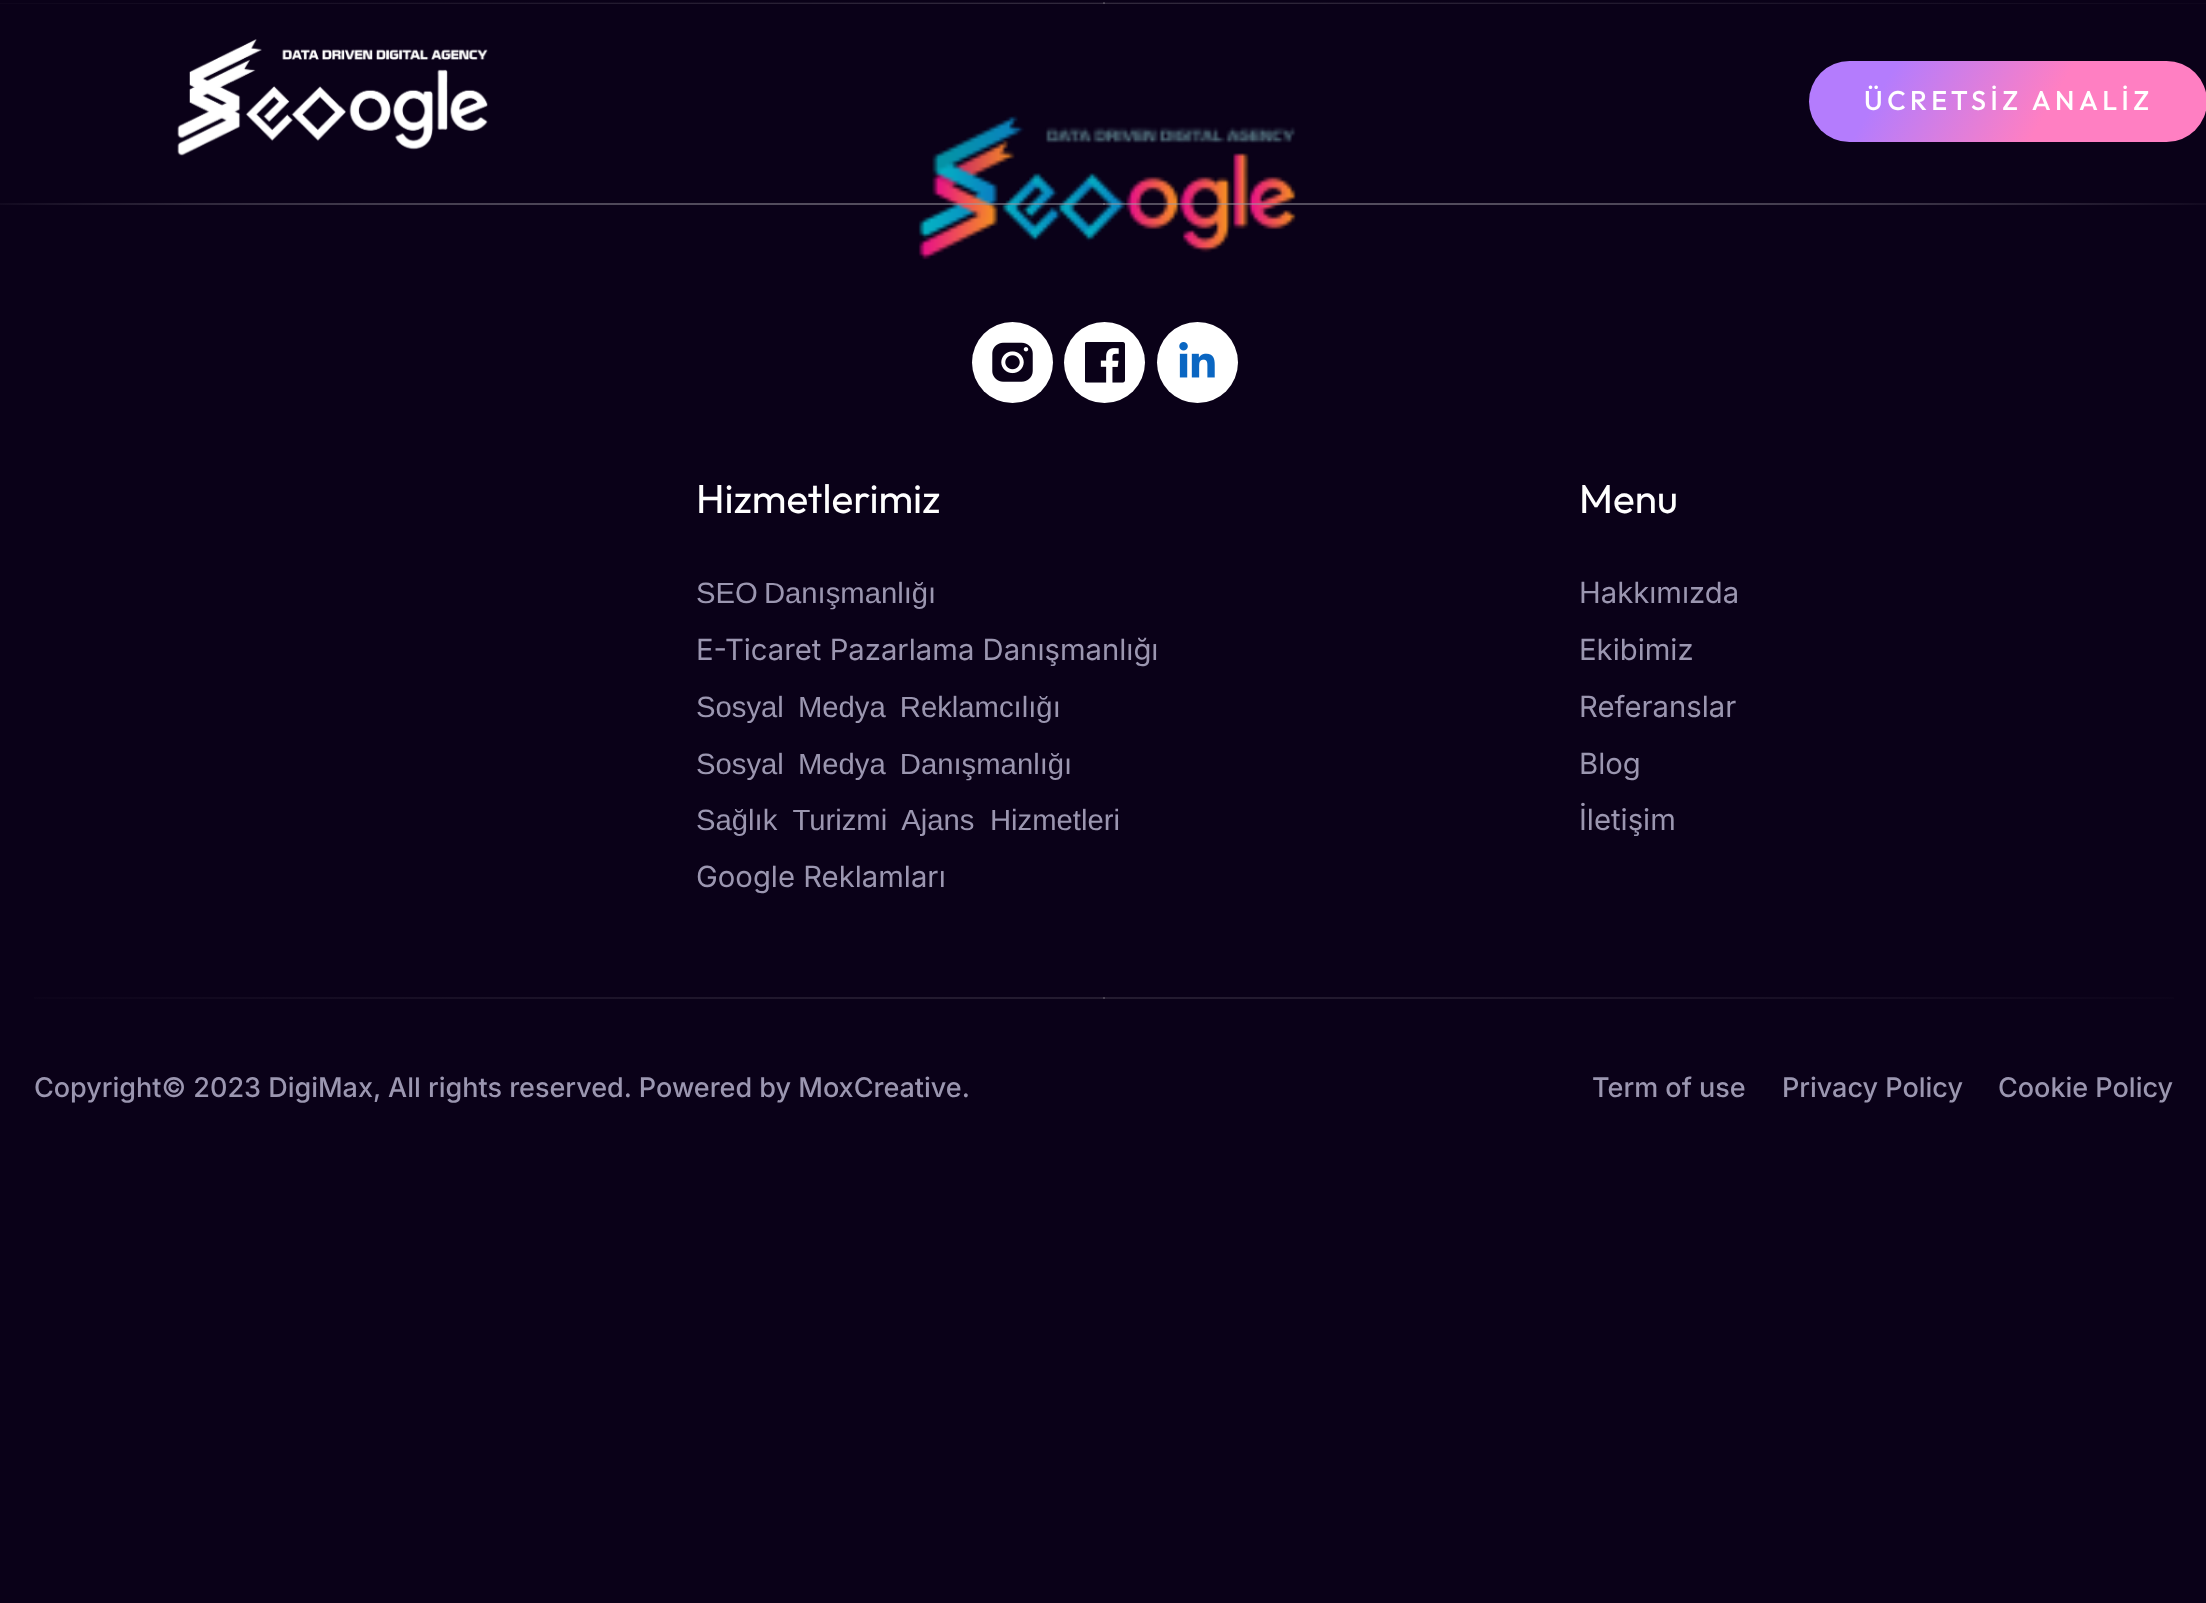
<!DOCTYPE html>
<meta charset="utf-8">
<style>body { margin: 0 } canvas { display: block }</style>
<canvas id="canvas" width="2206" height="1603"></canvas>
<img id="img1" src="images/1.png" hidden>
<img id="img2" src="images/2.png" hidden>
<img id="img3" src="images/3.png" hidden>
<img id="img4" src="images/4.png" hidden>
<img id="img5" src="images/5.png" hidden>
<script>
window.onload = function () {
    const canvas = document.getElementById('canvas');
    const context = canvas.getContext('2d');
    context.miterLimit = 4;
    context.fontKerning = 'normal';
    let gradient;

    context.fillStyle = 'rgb(10, 1, 24)';
    context.fillRect(0, 0, 2206, 1603);
    context.drawImage(document.getElementById('img1'), 177, 39, 311, 117);
    gradient = context.createLinearGradient(1841, 4.9, 2175, 198);
    gradient.addColorStop(0.2, 'rgb(180, 124, 253)');
    gradient.addColorStop(0.6, 'rgb(255, 127, 194)');
    context.fillStyle = gradient;
    context.beginPath();
    context.roundRect(1809, 61, 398, 81, 40.5);
    context.fill();
    context.drawImage(document.getElementById('img2'), 918, 115, 378, 145);
    gradient = context.createRadialGradient(1104, 199027.5, 0, 1104, 199027.5, 1561);
    gradient.addColorStop(0, 'rgba(255, 255, 255, 0.17)');
    gradient.addColorStop(0.8, 'rgb(10, 1, 24)');
    context.fillStyle = gradient;
    context.beginPath();
    context.rect(0, 203, 2206, 2);
    context.save();
    context.clip();
    context.scale(1, 1.6 / 1561);
    context.fillRect(0, 0, 2206, 1563927);
    context.restore();
    context.fillStyle = 'rgb(113, 108, 121)';
    context.fillRect(1103, 203, 2, 2);
    gradient = context.createRadialGradient(1104, 3317.12, 0, 1104, 3317.12, 1561);
    gradient.addColorStop(0, 'rgb(52, 44, 63)');
    gradient.addColorStop(0.8, 'rgb(10, 1, 24)');
    context.fillStyle = gradient;
    context.beginPath();
    context.rect(0, 2, 2206, 2);
    context.save();
    context.clip();
    context.scale(1, 1.6 / 1561);
    context.fillRect(0, 0, 2206, 1563927);
    context.restore();
    gradient = context.createRadialGradient(1104, 3317.12, 0, 1104, 3317.12, 1561);
    gradient.addColorStop(0, 'rgb(87, 80, 96)');
    gradient.addColorStop(0.8, 'rgb(52, 44, 63)');
    context.fillStyle = gradient;
    context.beginPath();
    context.rect(1103, 2, 2, 2);
    context.save();
    context.clip();
    context.scale(1, 1.6 / 1561);
    context.fillRect(0, 0, 2206, 1563927);
    context.restore();
    context.fillStyle = 'rgb(255, 255, 255)';
    context.beginPath();
    context.arc(1012.5, 362.5, 40.5, 0, 2 * Math.PI);
    context.fill();
    context.drawImage(document.getElementById('img3'), 992, 342, 41, 40);
    context.beginPath();
    context.arc(1104.5, 362.5, 40.5, 0, 2 * Math.PI);
    context.fill();
    context.drawImage(document.getElementById('img4'), 1085, 342, 40, 41);
    context.beginPath();
    context.arc(1197.5, 362.5, 40.5, 0, 2 * Math.PI);
    context.fill();
    context.drawImage(document.getElementById('img5'), 1179, 342, 36, 36);
    gradient = context.createRadialGradient(1104, 973673.75, 0, 1104, 973673.75, 1561);
    gradient.addColorStop(0, 'rgb(52, 44, 63)');
    gradient.addColorStop(0.8, 'rgb(10, 1, 24)');
    context.fillStyle = gradient;
    context.beginPath();
    context.rect(34, 997, 2140, 2);
    context.save();
    context.clip();
    context.scale(1, 1.6 / 1561);
    context.fillRect(0, 0, 2206, 1563927);
    context.restore();
    context.fillStyle = 'rgb(73, 66, 83)';
    context.fillRect(1103, 997, 2, 2);
    context.letterSpacing = '4.5px';
    context.font = '500 27px Outfit';
    context.fillStyle = 'rgb(255, 255, 255)';
    context.fillText('ÜCRETSİZ ANALİZ', 1864, 110);
    context.letterSpacing = '0px';
    context.font = '40.5px Outfit';
    context.fillText('Hizmetlerimiz', 696, 513);
    context.wordSpacing = '-2px';
    context.font = '29.25px Liberation Sans';
    context.fillStyle = 'rgb(155, 150, 176)';
    context.fillText('SEO Danışmanlığı', 696, 603);
    context.wordSpacing = '0px';
    context.font = '29.25px Inter';
    context.fillText('E-Ticaret Pazarlama Danışmanlığı', 696, 660);
    context.wordSpacing = '6px';
    context.font = '29.25px Liberation Sans';
    context.fillText('Sosyal Medya Reklamcılığı', 696, 717);
    context.fillText('Sosyal Medya Danışmanlığı', 696, 774);
    context.wordSpacing = '7.5px';
    context.fillText('Sağlık Turizmi Ajans Hizmetleri', 696, 830);
    context.wordSpacing = '0px';
    context.font = '29.25px Inter';
    context.fillText('Google Reklamları', 696, 887);
    context.font = '40.5px Outfit';
    context.fillStyle = 'rgb(255, 255, 255)';
    context.fillText('Menu', 1579, 513);
    context.font = '29.25px Inter';
    context.fillStyle = 'rgb(155, 150, 176)';
    context.fillText('Hakkımızda', 1579, 603);
    context.fillText('Ekibimiz', 1579, 660);
    context.fillText('Referanslar', 1579, 717);
    context.fillText('Blog', 1579, 774);
    context.fillText('İletişim', 1579, 830);
    context.font = '500 27px Inter';
    context.fillText('Copyright© 2023 DigiMax, All rights reserved. Powered by MoxCreative.', 34, 1097);
    context.fillText('Term of use', 1592, 1097);
    context.fillText('Privacy Policy', 1782, 1097);
    context.fillText('Cookie Policy', 1998, 1097);
};
</script>
